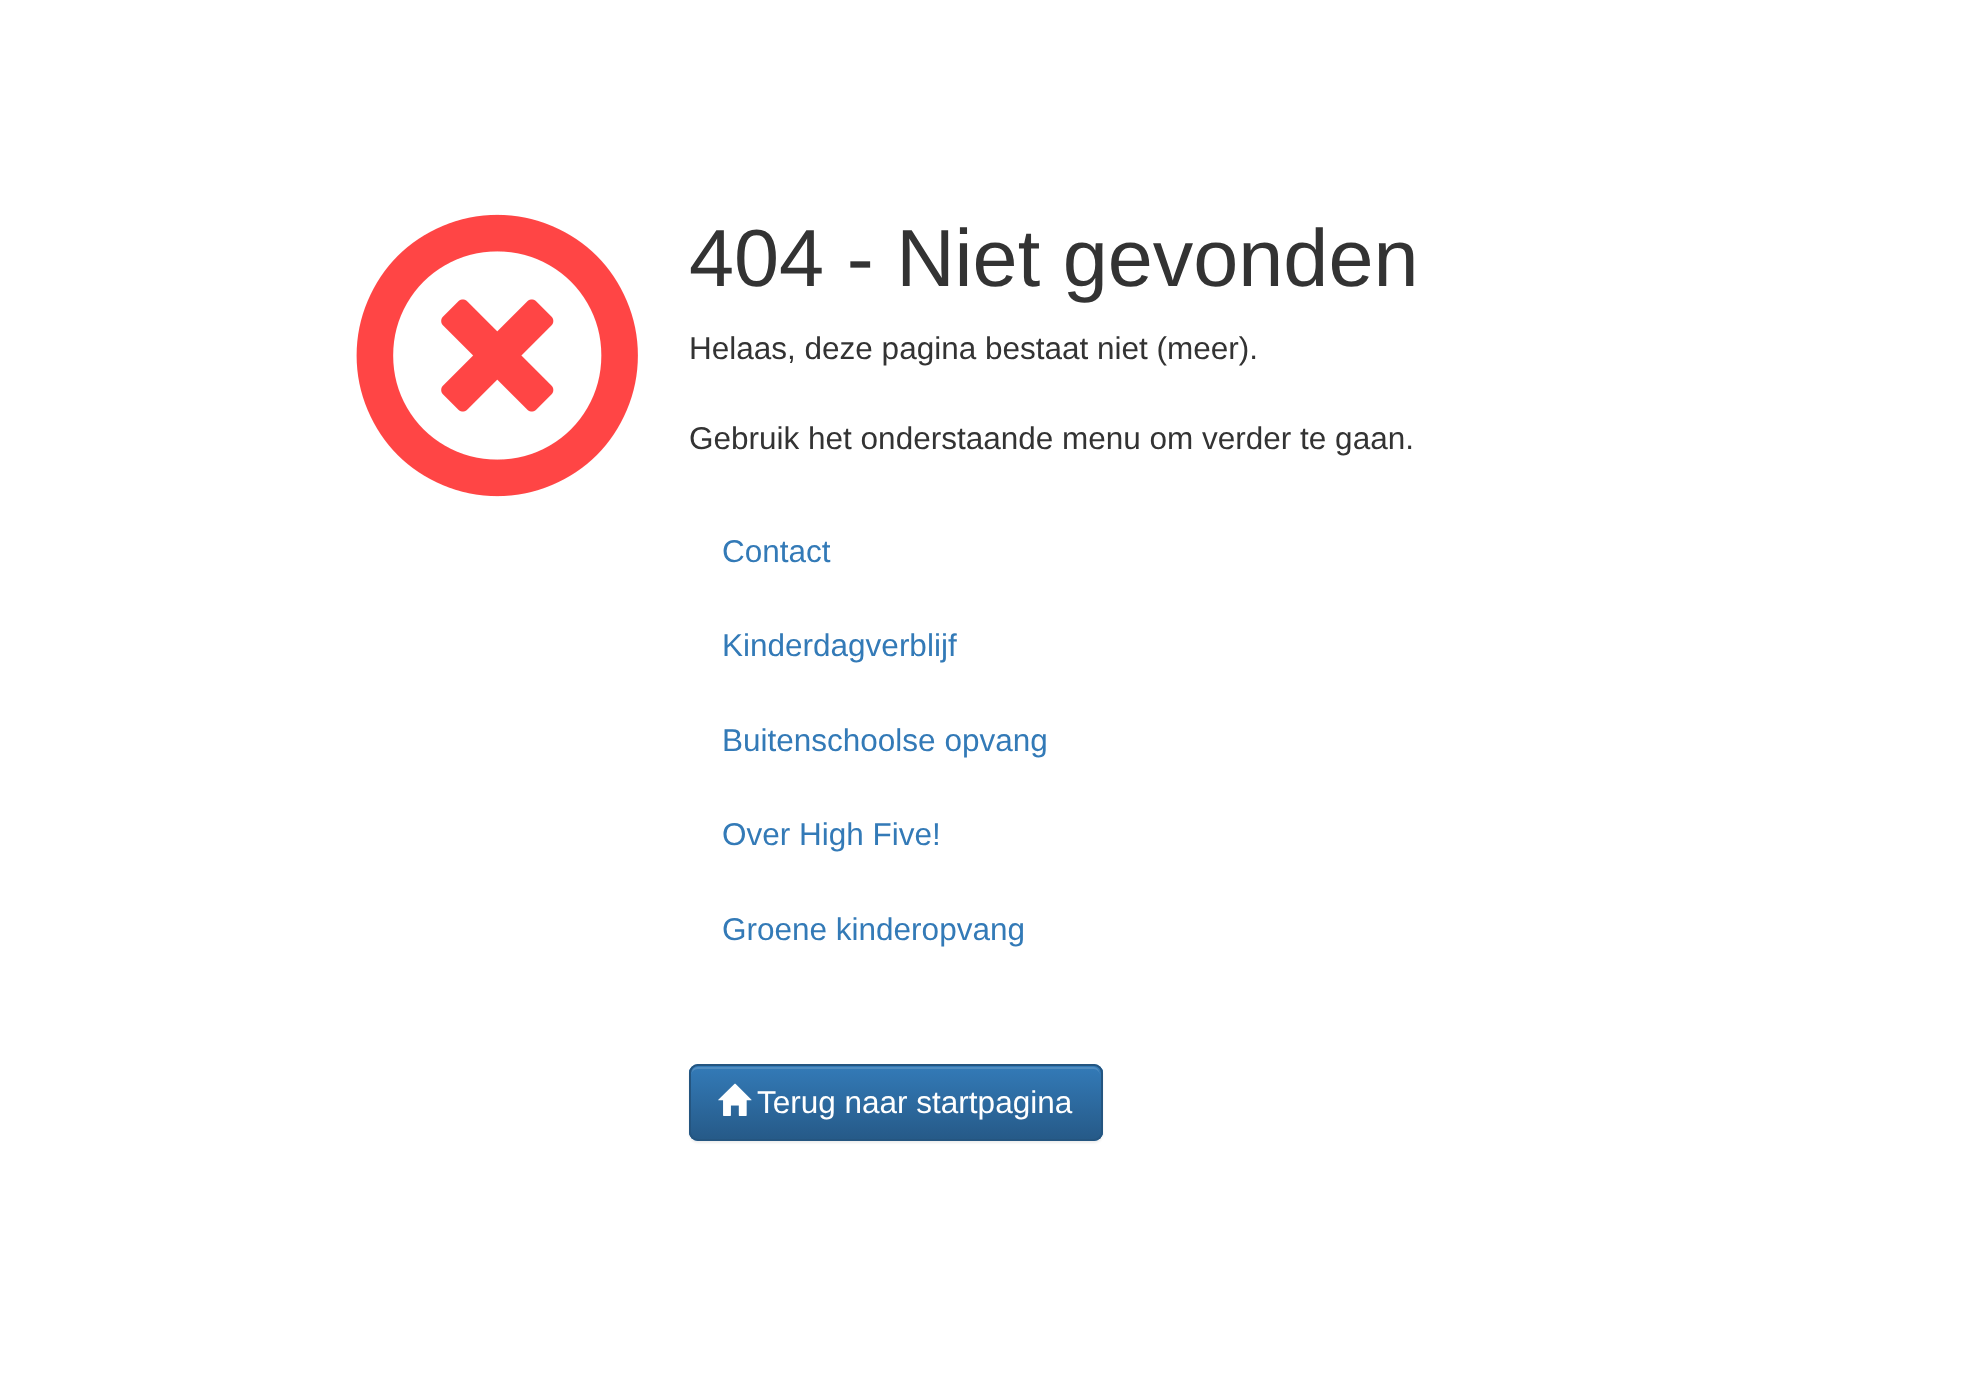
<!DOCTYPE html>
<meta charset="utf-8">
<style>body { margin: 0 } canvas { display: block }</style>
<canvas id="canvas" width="1984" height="1396"></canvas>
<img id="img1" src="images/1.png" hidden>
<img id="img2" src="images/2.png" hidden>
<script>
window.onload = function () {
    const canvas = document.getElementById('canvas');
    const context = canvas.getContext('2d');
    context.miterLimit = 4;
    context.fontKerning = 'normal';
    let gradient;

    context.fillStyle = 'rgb(255, 255, 255)';
    context.fillRect(0, 0, 1984, 1396);
    context.drawImage(document.getElementById('img1'), 356, 214, 282, 283);
    context.fillStyle = 'rgba(0, 0, 0, 0.07)';
    context.filter = 'blur(1px)';
    context.beginPath();
    context.roundRect(689, 1067, 414, 76, 9);
    context.fill();
    context.filter = 'none';
    context.fillStyle = 'rgb(51, 122, 183)';
    context.beginPath();
    context.roundRect(689, 1064, 414, 77, 9);
    context.fill();
    context.save();
    context.beginPath();
    context.roundRect(689, 1064, 414, 77, 9);
    context.clip();
    gradient = context.createLinearGradient(896, 1067, 896, 1139);
    gradient.addColorStop(0, 'rgb(51, 122, 183)');
    gradient.addColorStop(1, 'rgb(38, 90, 136)');
    context.fillStyle = gradient;
    context.fillRect(689, 1067, 414, 72);
    context.restore();
    context.fillStyle = 'rgba(255, 255, 255, 0.15)';
    context.beginPath();
    context.moveTo(698, 1069);
    context.lineTo(1094, 1069);
    context.bezierCurveTo(1097, 1069, 1100, 1072, 1100, 1076);
    context.bezierCurveTo(1100, 1072, 1098, 1067, 1093, 1067);
    context.lineTo(698, 1067);
    context.bezierCurveTo(693, 1067, 691, 1072, 691, 1076);
    context.bezierCurveTo(691, 1072, 694, 1069, 698, 1069);
    context.closePath();
    context.fill();
    context.beginPath();
    context.roundRect(690, 1065, 412, 75, 8);
    context.strokeStyle = 'rgb(36, 85, 128)';
    context.lineWidth = 2;
    context.stroke();
    context.drawImage(document.getElementById('img2'), 718, 1083, 34, 33);
    context.font = '81px Liberation Sans';
    context.fillStyle = 'rgb(51, 51, 51)';
    context.fillText('404 - Niet gevonden', 689, 286);
    context.font = '31.5px Liberation Sans';
    context.fillText('Helaas, deze pagina bestaat niet (meer).', 689, 359);
    context.fillText('Gebruik het onderstaande menu om verder te gaan.', 689, 449);
    context.fillStyle = 'rgb(51, 122, 183)';
    context.fillText('Contact', 722, 562);
    context.fillText('Kinderdagverblijf', 722, 656);
    context.fillText('Buitenschoolse opvang', 722, 751);
    context.fillText('Over High Five!', 722, 845);
    context.fillText('Groene kinderopvang', 722, 940);
    context.fillStyle = 'rgb(255, 255, 255)';
    context.fillText('Terug naar startpagina', 757, 1113);
};
</script>
